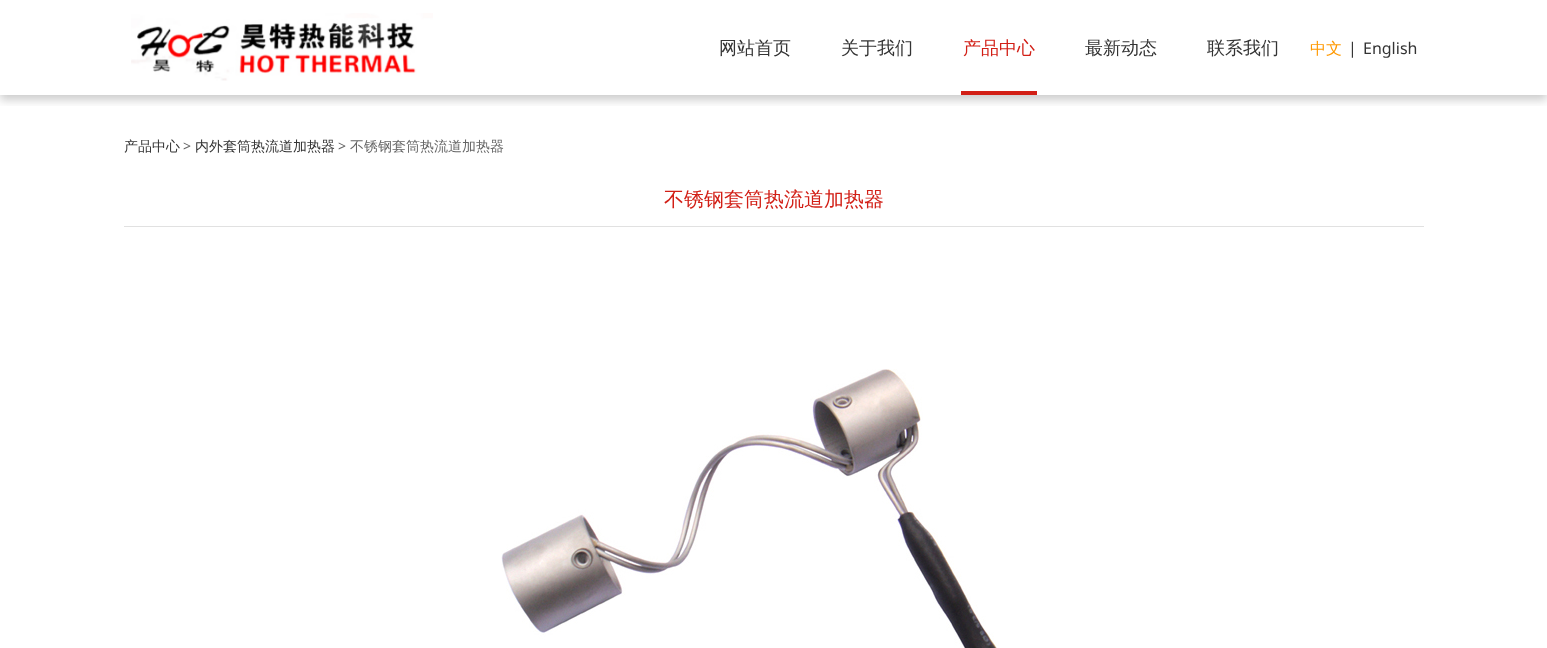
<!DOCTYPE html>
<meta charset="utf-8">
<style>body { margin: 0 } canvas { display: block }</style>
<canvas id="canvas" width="1547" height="648"></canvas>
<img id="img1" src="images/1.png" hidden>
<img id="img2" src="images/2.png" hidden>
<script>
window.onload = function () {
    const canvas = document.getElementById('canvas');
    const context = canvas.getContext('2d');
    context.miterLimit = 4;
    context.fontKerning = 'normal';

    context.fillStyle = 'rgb(255, 255, 255)';
    context.fillRect(0, 0, 1547, 648);
    context.save();
    context.beginPath();
    context.rect(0, 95, 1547, 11);
    context.clip();
    context.fillStyle = 'rgba(0, 0, 0, 0.2)';
    context.filter = 'blur(5px)';
    context.beginPath();
    context.rect(0, 5, 1547, 95);
    context.fill();
    context.filter = 'none';
    context.restore();
    context.drawImage(document.getElementById('img1'), 131, 13, 302, 68);
    context.fillStyle = 'rgb(210, 31, 22)';
    context.fillRect(961, 91, 76, 4);
    context.fillStyle = 'rgb(225, 225, 225)';
    context.fillRect(124, 226, 1300, 1);
    context.drawImage(document.getElementById('img2'), 501, 369, 498, 279);
    context.font = '500 18px WenQuanYi Zen Hei';
    context.fillStyle = 'rgb(51, 51, 51)';
    context.fillText('网站首页', 719, 54);
    context.fillText('关于我们', 841, 54);
    context.fillStyle = 'rgb(210, 31, 22)';
    context.fillText('产品中心', 963, 54);
    context.fillStyle = 'rgb(51, 51, 51)';
    context.fillText('最新动态', 1085, 54);
    context.fillText('联系我们', 1207, 54);
    context.font = '500 16px WenQuanYi Zen Hei';
    context.fillStyle = 'rgb(255, 153, 0)';
    context.fillText('中文', 1310, 54);
    context.font = '16px Noto Sans';
    context.fillStyle = 'rgb(51, 51, 51)';
    context.fillText('|', 1348, 54);
    context.fillText('English', 1363, 54);
    context.font = '500 14px WenQuanYi Zen Hei';
    context.fillText('产品中心', 124, 151);
    context.font = '14px Noto Sans';
    context.fillStyle = 'rgb(102, 102, 102)';
    context.fillText('>', 183, 151);
    context.font = '500 14px WenQuanYi Zen Hei';
    context.fillStyle = 'rgb(51, 51, 51)';
    context.fillText('内外套筒热流道加热器', 195, 151);
    context.font = '14px Noto Sans';
    context.fillStyle = 'rgb(102, 102, 102)';
    context.fillText('>', 338, 151);
    context.font = '500 14px WenQuanYi Zen Hei';
    context.fillText('不锈钢套筒热流道加热器', 350, 151);
    context.font = '500 20px WenQuanYi Zen Hei';
    context.fillStyle = 'rgb(210, 31, 22)';
    context.fillText('不锈钢套筒热流道加热器', 664, 206);
};
</script>
